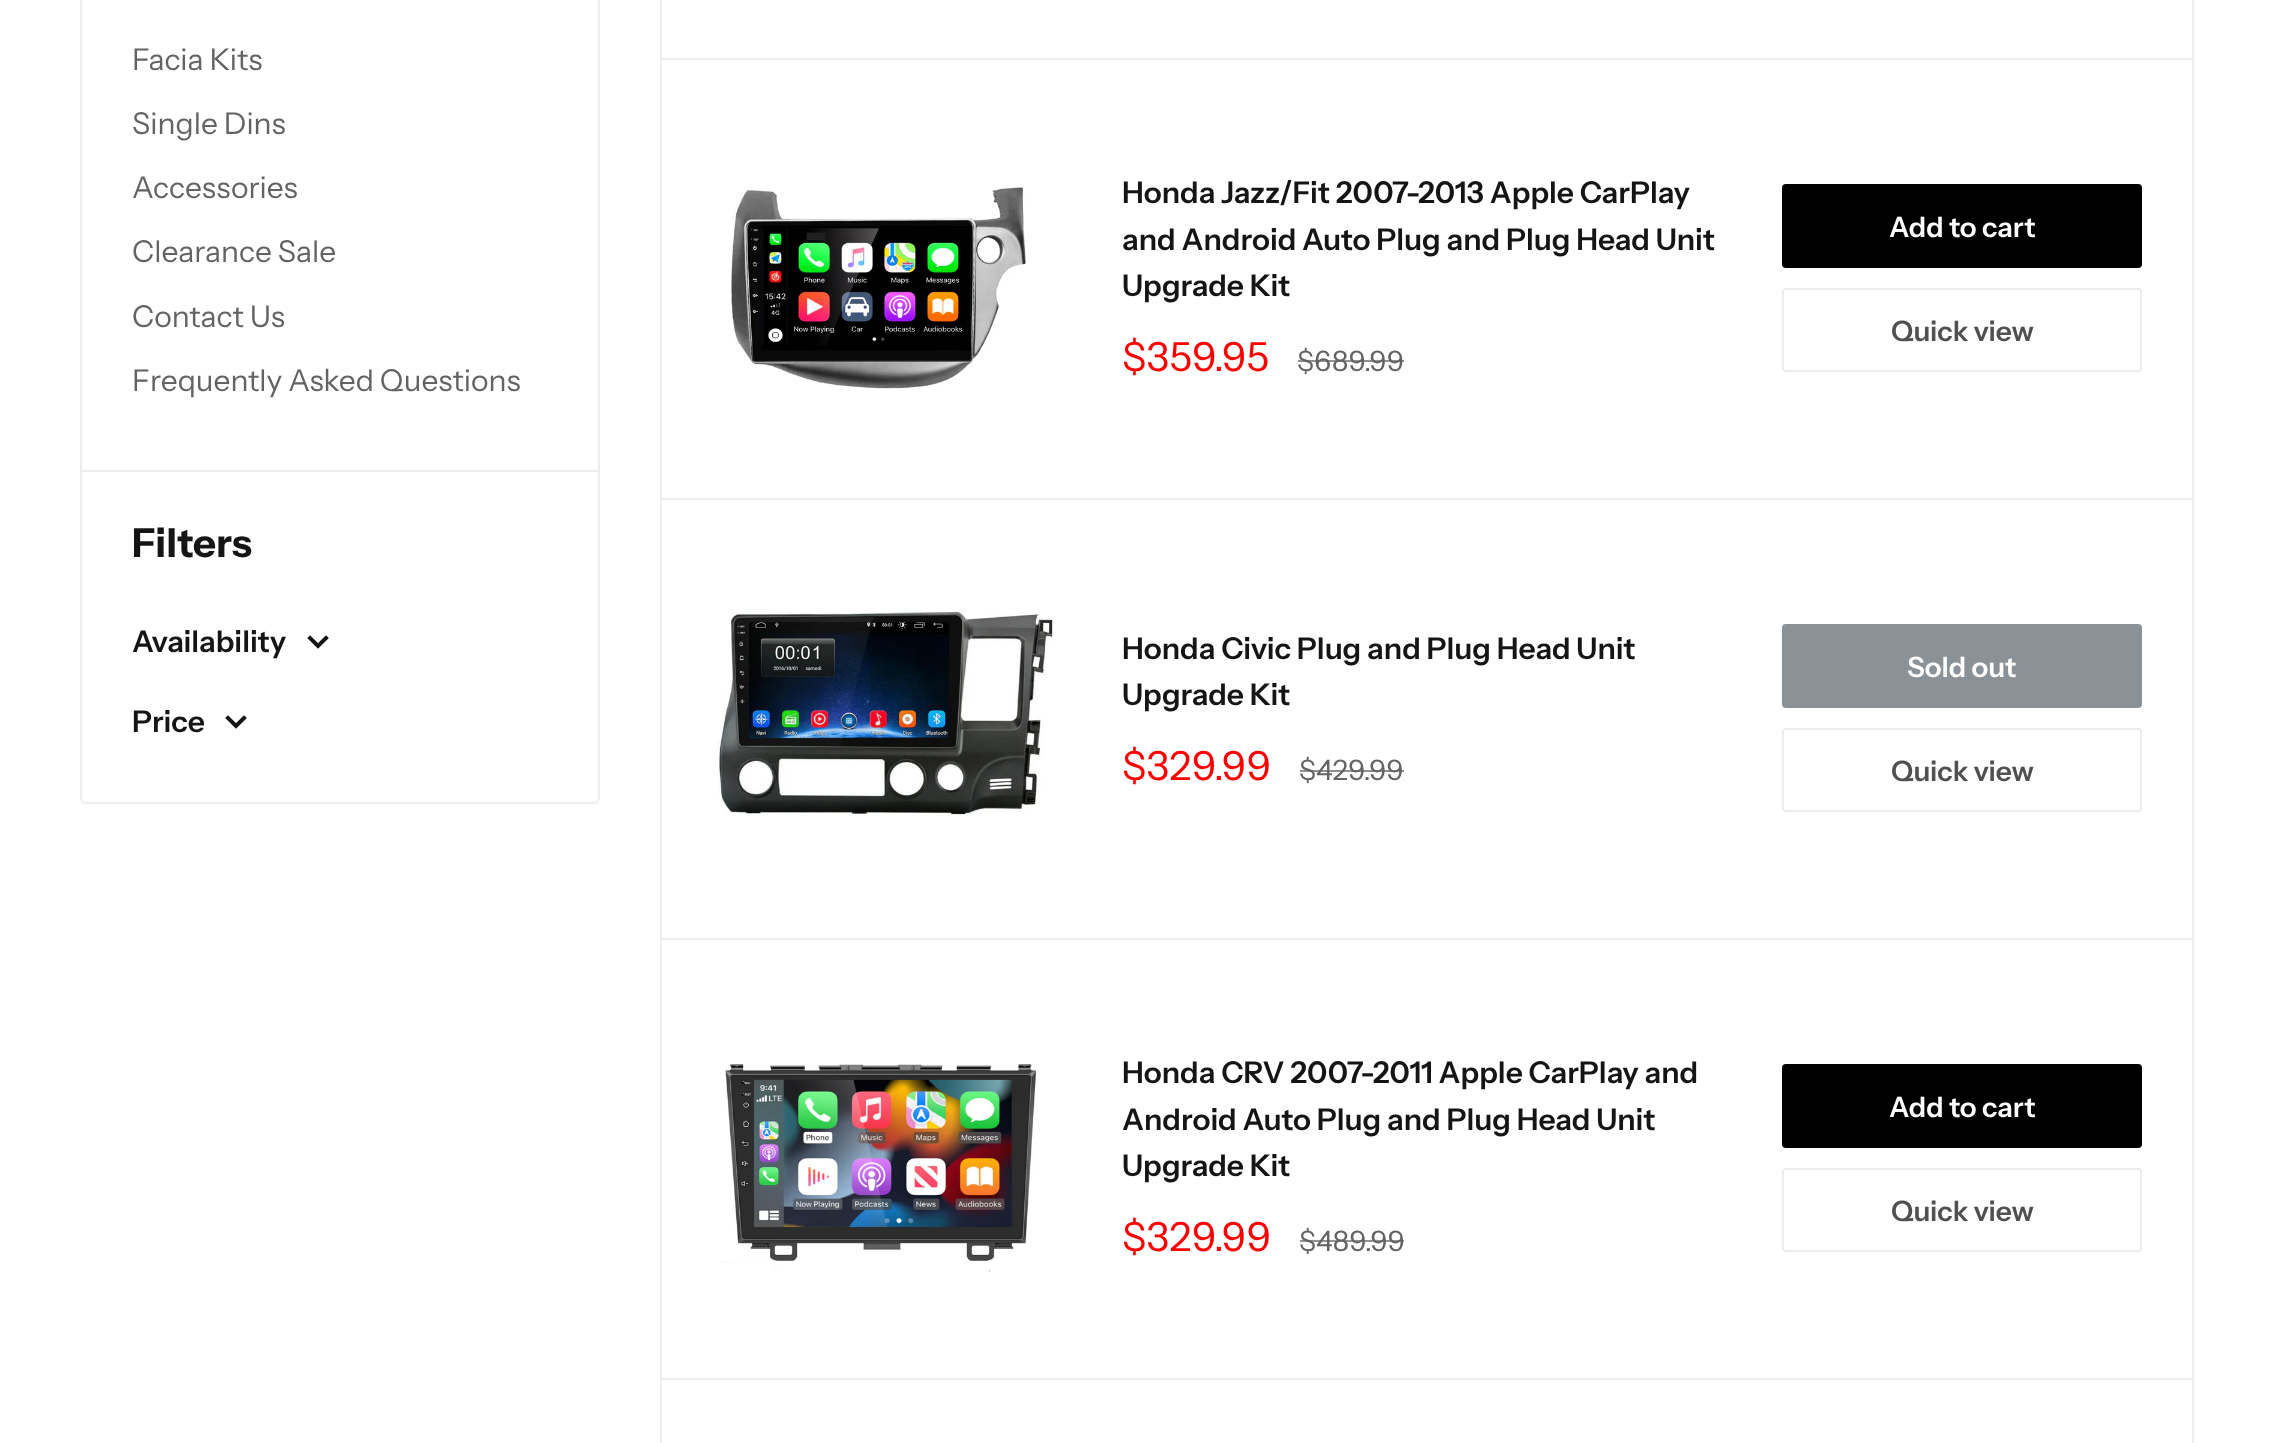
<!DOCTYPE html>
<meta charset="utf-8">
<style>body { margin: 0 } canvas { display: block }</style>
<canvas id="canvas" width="2273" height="1443"></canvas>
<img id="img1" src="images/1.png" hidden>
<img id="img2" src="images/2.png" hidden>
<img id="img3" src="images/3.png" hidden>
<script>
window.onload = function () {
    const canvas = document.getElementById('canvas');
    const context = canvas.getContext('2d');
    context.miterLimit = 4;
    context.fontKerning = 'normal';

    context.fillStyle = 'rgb(255, 255, 255)';
    context.fillRect(0, 0, 2273, 1443);
    context.beginPath();
    context.roundRect(81, -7, 518, 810, 5);
    context.strokeStyle = 'rgb(237, 237, 237)';
    context.lineWidth = 2;
    context.stroke();
    context.fillStyle = 'rgb(237, 237, 237)';
    context.fillRect(82, 470, 516, 2);
    context.beginPath();
    context.moveTo(326, 638);
    context.lineTo(318, 646);
    context.lineTo(310, 638);
    context.strokeStyle = 'rgb(21, 21, 21)';
    context.lineWidth = 4;
    context.lineCap = 'square';
    context.stroke();
    context.beginPath();
    context.moveTo(244, 718);
    context.lineTo(236, 726);
    context.lineTo(228, 718);
    context.stroke();
    context.strokeStyle = 'rgb(237, 237, 237)';
    context.lineWidth = 2;
    context.strokeRect(661, -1, 1532, 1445);
    context.fillRect(662, 58, 1530, 2);
    context.drawImage(document.getElementById('img1'), 731, 187, 295, 202);
    context.fillStyle = 'rgb(0, 0, 0)';
    context.beginPath();
    context.roundRect(1782, 184, 360, 84, 4);
    context.fill();
    context.beginPath();
    context.roundRect(1783, 289, 358, 82, 3);
    context.stroke();
    context.fillStyle = 'rgb(237, 237, 237)';
    context.fillRect(662, 498, 1530, 2);
    context.drawImage(document.getElementById('img2'), 718, 611, 336, 205);
    context.fillStyle = 'rgb(138, 146, 151)';
    context.beginPath();
    context.roundRect(1783, 625, 358, 82, 3);
    context.fill();
    context.strokeStyle = 'rgb(138, 146, 151)';
    context.stroke();
    context.beginPath();
    context.roundRect(1783, 729, 358, 82, 3);
    context.strokeStyle = 'rgb(237, 237, 237)';
    context.stroke();
    context.fillStyle = 'rgb(237, 237, 237)';
    context.fillRect(662, 938, 1530, 2);
    context.drawImage(document.getElementById('img3'), 719, 1064, 318, 209);
    context.fillStyle = 'rgb(0, 0, 0)';
    context.beginPath();
    context.roundRect(1782, 1064, 360, 84, 4);
    context.fill();
    context.beginPath();
    context.roundRect(1783, 1169, 358, 82, 3);
    context.stroke();
    context.fillStyle = 'rgb(237, 237, 237)';
    context.fillRect(662, 1378, 1530, 2);
    context.font = '30px Instrument Sans';
    context.fillStyle = 'rgb(99, 99, 99)';
    context.fillText('Facia Kits', 132, 70);
    context.fillText('Single Dins', 132, 134);
    context.fillText('Accessories', 132, 198);
    context.fillText('Clearance Sale', 132, 262);
    context.fillText('Contact Us', 132, 327);
    context.fillText('Frequently Asked Questions', 132, 391);
    context.font = 'bold 40px Instrument Sans';
    context.fillStyle = 'rgb(21, 21, 21)';
    context.fillText('Filters', 132, 557);
    context.font = '600 30px Instrument Sans';
    context.fillText('Availability', 132, 652);
    context.fillText('Price', 132, 732);
    context.fillText('Honda Jazz/Fit 2007-2013 Apple CarPlay', 1122, 203);
    context.fillText('and Android Auto Plug and Plug Head Unit', 1122, 250);
    context.fillText('Upgrade Kit', 1122, 296);
    context.font = '40px Instrument Sans';
    context.fillStyle = 'rgb(255, 0, 0)';
    context.fillText('$359.95', 1122, 371);
    context.font = '28px Instrument Sans';
    context.fillStyle = 'rgb(99, 99, 99)';
    context.fillText('$689.99', 1297, 371);
    context.fillStyle = 'rgba(99, 99, 99, 0.7)';
    context.fillRect(1298, 360, 106, 2);
    context.font = '600 28px Instrument Sans';
    context.fillStyle = 'rgb(255, 255, 255)';
    context.fillText('Add to cart', 1889, 237);
    context.fillStyle = 'rgb(80, 80, 80)';
    context.fillText('Quick view', 1891, 341);
    context.font = '600 30px Instrument Sans';
    context.fillStyle = 'rgb(21, 21, 21)';
    context.fillText('Honda Civic Plug and Plug Head Unit', 1122, 659);
    context.fillText('Upgrade Kit', 1122, 705);
    context.font = '40px Instrument Sans';
    context.fillStyle = 'rgb(255, 0, 0)';
    context.fillText('$329.99', 1122, 780);
    context.font = '28px Instrument Sans';
    context.fillStyle = 'rgb(99, 99, 99)';
    context.fillText('$429.99', 1299, 780);
    context.fillStyle = 'rgba(99, 99, 99, 0.7)';
    context.fillRect(1300, 770, 104, 2);
    context.font = '600 28px Instrument Sans';
    context.fillStyle = 'rgb(255, 255, 255)';
    context.fillText('Sold out', 1907, 677);
    context.fillStyle = 'rgb(80, 80, 80)';
    context.fillText('Quick view', 1891, 781);
    context.font = '600 30px Instrument Sans';
    context.fillStyle = 'rgb(21, 21, 21)';
    context.fillText('Honda CRV 2007-2011 Apple CarPlay and', 1122, 1083);
    context.fillText('Android Auto Plug and Plug Head Unit', 1122, 1130);
    context.fillText('Upgrade Kit', 1122, 1176);
    context.font = '40px Instrument Sans';
    context.fillStyle = 'rgb(255, 0, 0)';
    context.fillText('$329.99', 1122, 1251);
    context.font = '28px Instrument Sans';
    context.fillStyle = 'rgb(99, 99, 99)';
    context.fillText('$489.99', 1299, 1251);
    context.fillStyle = 'rgba(99, 99, 99, 0.7)';
    context.fillRect(1300, 1240, 104, 2);
    context.font = '600 28px Instrument Sans';
    context.fillStyle = 'rgb(255, 255, 255)';
    context.fillText('Add to cart', 1889, 1117);
    context.fillStyle = 'rgb(80, 80, 80)';
    context.fillText('Quick view', 1891, 1221);
};
</script>
